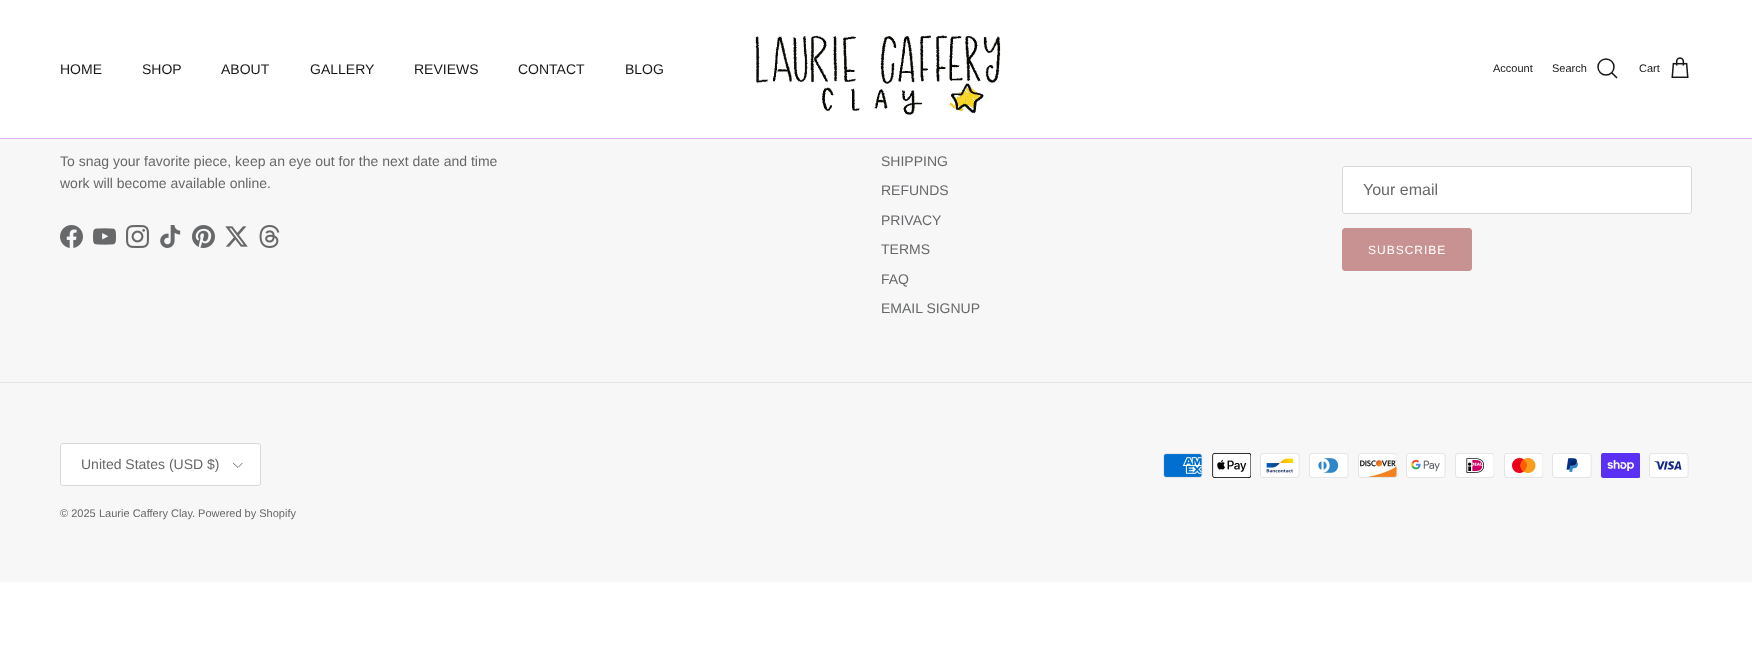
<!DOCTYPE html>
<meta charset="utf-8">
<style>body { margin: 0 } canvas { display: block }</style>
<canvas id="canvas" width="1752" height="671"></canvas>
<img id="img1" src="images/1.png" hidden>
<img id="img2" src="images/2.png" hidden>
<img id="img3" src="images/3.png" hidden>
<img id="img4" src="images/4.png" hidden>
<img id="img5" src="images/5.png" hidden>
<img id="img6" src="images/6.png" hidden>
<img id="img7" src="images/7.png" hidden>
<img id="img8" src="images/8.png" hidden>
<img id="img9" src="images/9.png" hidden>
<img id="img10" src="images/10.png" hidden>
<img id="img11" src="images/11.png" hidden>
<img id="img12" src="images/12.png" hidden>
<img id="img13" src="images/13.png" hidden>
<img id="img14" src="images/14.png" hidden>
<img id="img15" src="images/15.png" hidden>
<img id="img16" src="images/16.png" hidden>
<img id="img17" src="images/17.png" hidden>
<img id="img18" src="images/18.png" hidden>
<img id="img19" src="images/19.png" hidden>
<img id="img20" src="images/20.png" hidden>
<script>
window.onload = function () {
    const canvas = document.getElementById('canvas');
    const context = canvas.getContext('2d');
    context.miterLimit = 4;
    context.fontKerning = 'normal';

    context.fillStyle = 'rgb(255, 255, 255)';
    context.fillRect(0, 0, 1752, 671);
    context.fillStyle = 'rgb(226, 176, 239)';
    context.fillRect(0, 138, 1752, 1);
    context.drawImage(document.getElementById('img1'), 755, 35, 246, 80);
    context.beginPath();
    context.arc(1606, 67, 8, 0, 2 * Math.PI);
    context.strokeStyle = 'rgb(23, 23, 23)';
    context.lineWidth = 1.5;
    context.stroke();
    context.beginPath();
    context.moveTo(1612, 73);
    context.lineTo(1616.5, 77.5);
    context.lineCap = 'square';
    context.stroke();
    context.drawImage(document.getElementById('img2'), 1671, 57, 18, 21);
    context.fillStyle = 'rgb(247, 247, 248)';
    context.fillRect(0, 139, 1752, 443);
    context.drawImage(document.getElementById('img3'), 60, 225, 23, 23);
    context.drawImage(document.getElementById('img4'), 93, 228, 23, 17);
    context.drawImage(document.getElementById('img5'), 126, 225, 23, 23);
    context.drawImage(document.getElementById('img6'), 160, 225, 21, 23);
    context.drawImage(document.getElementById('img7'), 192, 225, 23, 23);
    context.drawImage(document.getElementById('img8'), 225, 226, 23, 21);
    context.drawImage(document.getElementById('img9'), 259, 225, 21, 23);
    context.fillStyle = 'rgb(255, 255, 255)';
    context.beginPath();
    context.roundRect(1342.5, 166.5, 349, 47, 2.5);
    context.fill();
    context.strokeStyle = 'rgb(217, 217, 218)';
    context.lineWidth = 1;
    context.stroke();
    context.fillStyle = 'rgb(200, 146, 146)';
    context.beginPath();
    context.roundRect(1342.5, 228.5, 129, 42, 2.5);
    context.fill();
    context.strokeStyle = 'rgb(200, 146, 146)';
    context.stroke();
    context.fillStyle = 'rgb(228, 228, 228)';
    context.fillRect(0, 382, 1752, 1);
    context.fillStyle = 'rgb(255, 255, 255)';
    context.beginPath();
    context.roundRect(60.5, 443.5, 200, 42, 2.5);
    context.fill();
    context.strokeStyle = 'rgb(217, 217, 218)';
    context.stroke();
    context.beginPath();
    context.moveTo(242.5, 463);
    context.lineTo(238, 467.5);
    context.lineTo(233, 463);
    context.strokeStyle = 'rgb(103, 104, 105)';
    context.lineWidth = 0.9;
    context.lineCap = 'butt';
    context.stroke();
    context.drawImage(document.getElementById('img10'), 1163, 453, 40, 25);
    context.drawImage(document.getElementById('img11'), 1212, 453, 39, 25);
    context.drawImage(document.getElementById('img12'), 1260, 453, 40, 25);
    context.drawImage(document.getElementById('img13'), 1309, 453, 40, 25);
    context.drawImage(document.getElementById('img14'), 1358, 453, 39, 25);
    context.drawImage(document.getElementById('img15'), 1406, 453, 40, 25);
    context.drawImage(document.getElementById('img16'), 1455, 453, 39, 25);
    context.drawImage(document.getElementById('img17'), 1504, 453, 39, 25);
    context.drawImage(document.getElementById('img18'), 1552, 453, 40, 25);
    context.drawImage(document.getElementById('img19'), 1601, 453, 39, 25);
    context.drawImage(document.getElementById('img20'), 1649, 453, 40, 25);
    context.font = '14px Arimo';
    context.fillStyle = 'rgb(23, 23, 23)';
    context.fillText('HOME', 60, 74);
    context.fillText('SHOP', 142, 74);
    context.fillText('ABOUT', 221, 74);
    context.fillText('GALLERY', 310, 74);
    context.fillText('REVIEWS', 414, 74);
    context.fillText('CONTACT', 518, 74);
    context.fillText('BLOG', 625, 74);
    context.font = '11px Arimo';
    context.fillText('Account', 1493, 72);
    context.fillText('Search', 1552, 72);
    context.fillText('Cart', 1639, 72);
    context.font = '14px Arimo';
    context.fillStyle = 'rgb(103, 104, 105)';
    context.fillText('To snag your favorite piece, keep an eye out for the next date and time', 60, 166);
    context.fillText('work will become available online.', 60, 188);
    context.fillText('SHIPPING', 881, 166);
    context.fillText('REFUNDS', 881, 195);
    context.fillText('PRIVACY', 881, 225);
    context.fillText('TERMS', 881, 254);
    context.fillText('FAQ', 881, 284);
    context.fillText('EMAIL SIGNUP', 881, 313);
    context.font = '16px Arimo';
    context.fillText('Your email', 1363, 195);
    context.letterSpacing = '1px';
    context.font = '12px Arimo';
    context.fillStyle = 'rgb(255, 255, 255)';
    context.fillText('SUBSCRIBE', 1368, 254);
    context.letterSpacing = '0px';
    context.font = '14px Arimo';
    context.fillStyle = 'rgb(103, 104, 105)';
    context.fillText('United States (USD $)', 81, 469);
    context.font = '11px Arimo';
    context.fillText('© 2025', 60, 517);
    context.fillText('Laurie Caffery Clay', 99, 517);
    context.fillText('. Powered by Shopify', 192, 517);
};
</script>
